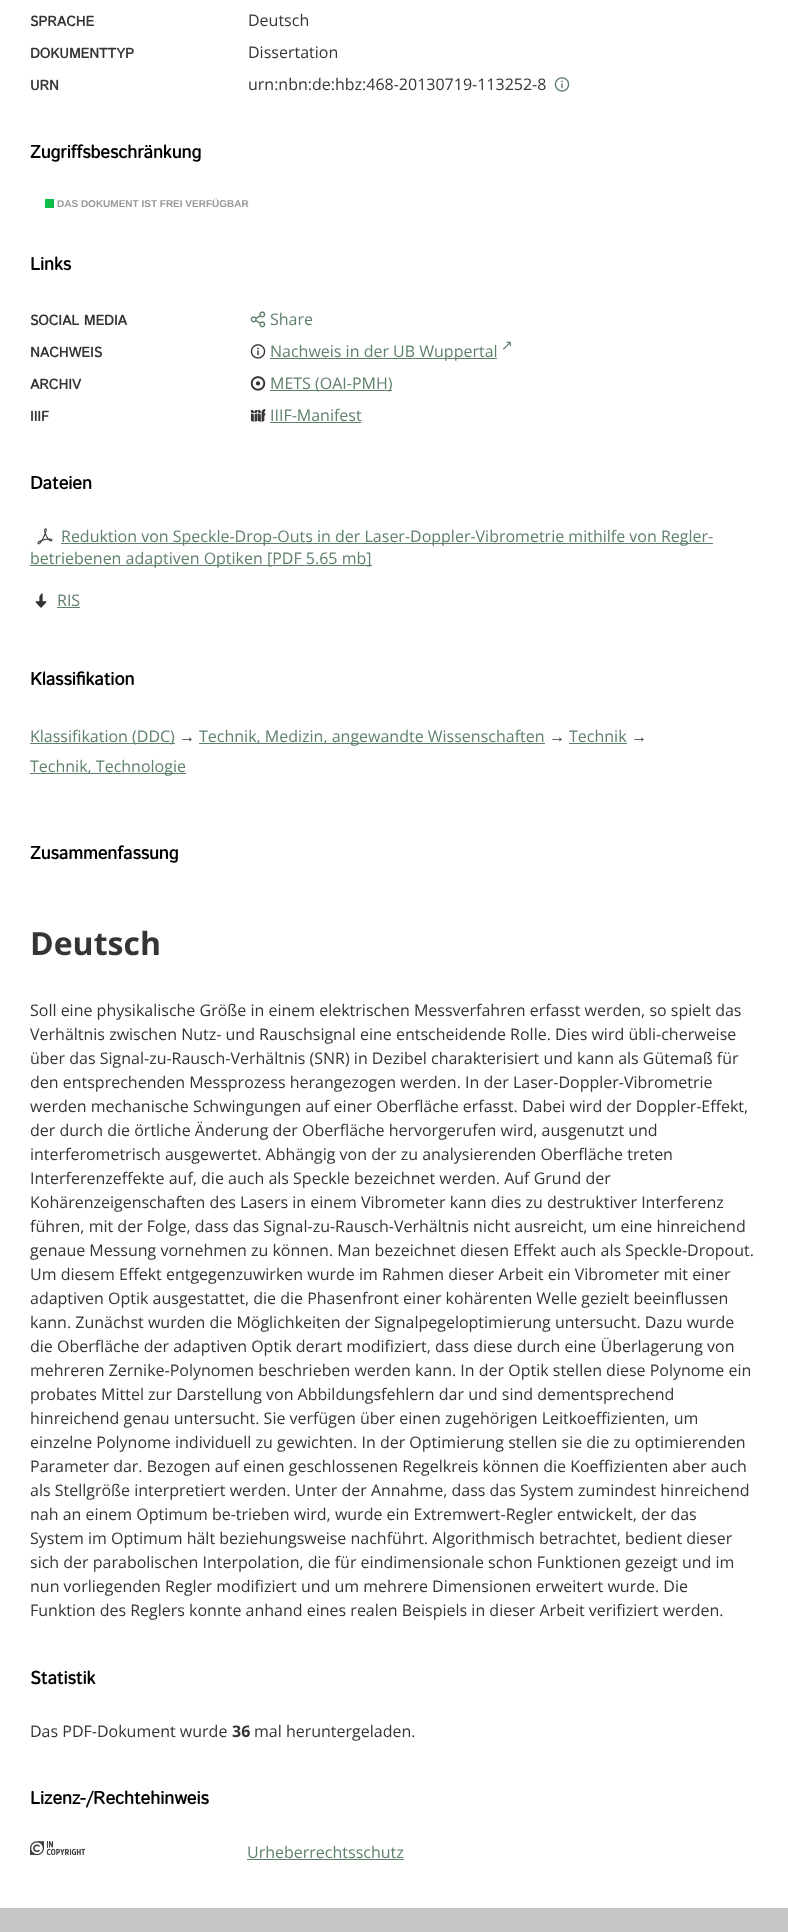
<!DOCTYPE html>
<meta charset="utf-8">
<style>body { margin: 0 } canvas { display: block }</style>
<canvas id="canvas" width="788" height="1932"></canvas>
<img id="img1" src="images/1.png" hidden>
<img id="img2" src="images/2.png" hidden>
<img id="img3" src="images/3.png" hidden>
<img id="img4" src="images/4.png" hidden>
<img id="img5" src="images/5.png" hidden>
<img id="img6" src="images/6.png" hidden>
<img id="img7" src="images/7.png" hidden>
<img id="img8" src="images/8.png" hidden>
<script>
window.onload = function () {
    const canvas = document.getElementById('canvas');
    const context = canvas.getContext('2d');
    context.miterLimit = 4;
    context.fontKerning = 'normal';

    context.fillStyle = 'rgb(255, 255, 255)';
    context.fillRect(0, 0, 788, 1932);
    context.drawImage(document.getElementById('img1'), 554, 77, 16, 15);
    context.fillStyle = 'rgb(11, 190, 73)';
    context.fillRect(45, 199, 9, 9);
    context.drawImage(document.getElementById('img2'), 250, 311, 16, 17);
    context.drawImage(document.getElementById('img3'), 250, 344, 16, 15);
    context.fillStyle = 'rgb(95, 128, 107)';
    context.fillRect(270, 358, 227, 1);
    context.drawImage(document.getElementById('img4'), 250, 376, 16, 15);
    context.fillRect(270, 390, 122, 1);
    context.drawImage(document.getElementById('img5'), 250, 409, 16, 13);
    context.fillRect(270, 422, 91, 1);
    context.drawImage(document.getElementById('img6'), 37, 528, 16, 17);
    context.fillRect(61, 543, 652, 1);
    context.fillRect(30, 565, 342, 1);
    context.drawImage(document.getElementById('img7'), 35, 593, 12, 15);
    context.fillRect(57, 607, 23, 1);
    context.fillRect(30, 743, 145, 1);
    context.fillRect(199, 743, 346, 1);
    context.fillRect(569, 743, 58, 1);
    context.fillRect(30, 773, 156, 1);
    context.drawImage(document.getElementById('img8'), 30, 1841, 55, 14);
    context.fillRect(247, 1859, 157, 1);
    context.fillStyle = 'rgb(198, 198, 198)';
    context.fillRect(0, 1908, 788, 24);
    context.font = 'bold 14px Istok Web';
    context.fillStyle = 'rgb(53, 53, 53)';
    context.fillText('SPRACHE', 30, 26);
    context.font = '16px Open Sans';
    context.fillText('Deutsch', 248, 26);
    context.font = 'bold 14px Istok Web';
    context.fillText('DOKUMENTTYP', 30, 58);
    context.font = '16px Open Sans';
    context.fillText('Dissertation', 248, 58);
    context.font = 'bold 14px Istok Web';
    context.fillText('URN', 30, 90);
    context.font = '16px Open Sans';
    context.fillText('urn:nbn:de:hbz:468-20130719-113252-8', 248, 90);
    context.font = 'bold 18px Istok Web';
    context.fillStyle = 'rgb(0, 0, 0)';
    context.fillText('Zugriffsbeschränkung', 30, 158);
    context.font = 'bold 10px Liberation Sans';
    context.fillStyle = 'rgb(153, 153, 153)';
    context.fillText('DAS DOKUMENT IST FREI VERFÜGBAR', 57, 207);
    context.font = 'bold 18px Istok Web';
    context.fillStyle = 'rgb(0, 0, 0)';
    context.fillText('Links', 30, 270);
    context.font = 'bold 14px Istok Web';
    context.fillStyle = 'rgb(53, 53, 53)';
    context.fillText('SOCIAL MEDIA', 30, 325);
    context.font = '16px Open Sans';
    context.fillStyle = 'rgb(95, 128, 107)';
    context.fillText('Share', 270, 325);
    context.font = 'bold 14px Istok Web';
    context.fillStyle = 'rgb(53, 53, 53)';
    context.fillText('NACHWEIS', 30, 357);
    context.font = '16px Open Sans';
    context.fillStyle = 'rgb(95, 128, 107)';
    context.fillText('Nachweis in der UB Wuppertal', 270, 357);
    context.font = '14px DejaVu Sans';
    context.fillText('↗', 501, 350);
    context.font = 'bold 14px Istok Web';
    context.fillStyle = 'rgb(53, 53, 53)';
    context.fillText('ARCHIV', 30, 389);
    context.font = '16px Open Sans';
    context.fillStyle = 'rgb(95, 128, 107)';
    context.fillText('METS (OAI-PMH)', 270, 389);
    context.font = 'bold 14px Istok Web';
    context.fillStyle = 'rgb(53, 53, 53)';
    context.fillText('IIIF', 30, 421);
    context.font = '16px Open Sans';
    context.fillStyle = 'rgb(95, 128, 107)';
    context.fillText('IIIF-Manifest', 270, 421);
    context.font = 'bold 18px Istok Web';
    context.fillStyle = 'rgb(0, 0, 0)';
    context.fillText('Dateien', 30, 489);
    context.font = '16px Open Sans';
    context.fillStyle = 'rgb(95, 128, 107)';
    context.fillText('Reduktion von Speckle-Drop-Outs in der Laser-Doppler-Vibrometrie mithilfe von Regler-', 61, 542);
    context.fillText('betriebenen adaptiven Optiken [PDF 5.65 mb]', 30, 564);
    context.fillText('RIS', 57, 606);
    context.font = 'bold 18px Istok Web';
    context.fillStyle = 'rgb(0, 0, 0)';
    context.fillText('Klassifikation', 30, 685);
    context.font = '16px Open Sans';
    context.fillStyle = 'rgb(95, 128, 107)';
    context.fillText('Klassifikation (DDC)', 30, 742);
    context.font = '16px Liberation Sans';
    context.fillStyle = 'rgb(53, 53, 53)';
    context.fillText('→', 179, 742);
    context.font = '16px Open Sans';
    context.fillStyle = 'rgb(95, 128, 107)';
    context.fillText('Technik, Medizin, angewandte Wissenschaften', 199, 742);
    context.font = '16px Liberation Sans';
    context.fillStyle = 'rgb(53, 53, 53)';
    context.fillText('→', 549, 742);
    context.font = '16px Open Sans';
    context.fillStyle = 'rgb(95, 128, 107)';
    context.fillText('Technik', 569, 742);
    context.font = '16px Liberation Sans';
    context.fillStyle = 'rgb(53, 53, 53)';
    context.fillText('→', 631, 742);
    context.font = '16px Open Sans';
    context.fillStyle = 'rgb(95, 128, 107)';
    context.fillText('Technik, Technologie', 30, 772);
    context.font = 'bold 18px Istok Web';
    context.fillStyle = 'rgb(0, 0, 0)';
    context.fillText('Zusammenfassung', 30, 859);
    context.font = 'bold 32px Open Sans';
    context.fillStyle = 'rgb(53, 53, 53)';
    context.fillText('Deutsch', 30, 955);
    context.font = '16px Open Sans';
    context.fillText('Soll eine physikalische Größe in einem elektrischen Messverfahren erfasst werden, so spielt das', 30, 1016);
    context.fillText('Verhältnis zwischen Nutz- und Rauschsignal eine entscheidende Rolle. Dies wird übli-cherweise', 30, 1040);
    context.fillText('über das Signal-zu-Rausch-Verhältnis (SNR) in Dezibel charakterisiert und kann als Gütemaß für', 30, 1064);
    context.fillText('den entsprechenden Messprozess herangezogen werden. In der Laser-Doppler-Vibrometrie', 30, 1088);
    context.fillText('werden mechanische Schwingungen auf einer Oberfläche erfasst. Dabei wird der Doppler-Effekt,', 30, 1112);
    context.fillText('der durch die örtliche Änderung der Oberfläche hervorgerufen wird, ausgenutzt und', 30, 1136);
    context.fillText('interferometrisch ausgewertet. Abhängig von der zu analysierenden Oberfläche treten', 30, 1160);
    context.fillText('Interferenzeffekte auf, die auch als Speckle bezeichnet werden. Auf Grund der', 30, 1184);
    context.fillText('Kohärenzeigenschaften des Lasers in einem Vibrometer kann dies zu destruktiver Interferenz', 30, 1208);
    context.fillText('führen, mit der Folge, dass das Signal-zu-Rausch-Verhältnis nicht ausreicht, um eine hinreichend', 30, 1232);
    context.fillText('genaue Messung vornehmen zu können. Man bezeichnet diesen Effekt auch als Speckle-Dropout.', 30, 1256);
    context.fillText('Um diesem Effekt entgegenzuwirken wurde im Rahmen dieser Arbeit ein Vibrometer mit einer', 30, 1280);
    context.fillText('adaptiven Optik ausgestattet, die die Phasenfront einer kohärenten Welle gezielt beeinflussen', 30, 1304);
    context.fillText('kann. Zunächst wurden die Möglichkeiten der Signalpegeloptimierung untersucht. Dazu wurde', 30, 1328);
    context.fillText('die Oberfläche der adaptiven Optik derart modifiziert, dass diese durch eine Überlagerung von', 30, 1352);
    context.fillText('mehreren Zernike-Polynomen beschrieben werden kann. In der Optik stellen diese Polynome ein', 30, 1376);
    context.fillText('probates Mittel zur Darstellung von Abbildungsfehlern dar und sind dementsprechend', 30, 1400);
    context.fillText('hinreichend genau untersucht. Sie verfügen über einen zugehörigen Leitkoeffizienten, um', 30, 1424);
    context.fillText('einzelne Polynome individuell zu gewichten. In der Optimierung stellen sie die zu optimierenden', 30, 1448);
    context.fillText('Parameter dar. Bezogen auf einen geschlossenen Regelkreis können die Koeffizienten aber auch', 30, 1472);
    context.fillText('als Stellgröße interpretiert werden. Unter der Annahme, dass das System zumindest hinreichend', 30, 1496);
    context.fillText('nah an einem Optimum be-trieben wird, wurde ein Extremwert-Regler entwickelt, der das', 30, 1520);
    context.fillText('System im Optimum hält beziehungsweise nachführt. Algorithmisch betrachtet, bedient dieser', 30, 1544);
    context.fillText('sich der parabolischen Interpolation, die für eindimensionale schon Funktionen gezeigt und im', 30, 1568);
    context.fillText('nun vorliegenden Regler modifiziert und um mehrere Dimensionen erweitert wurde. Die', 30, 1592);
    context.fillText('Funktion des Reglers konnte anhand eines realen Beispiels in dieser Arbeit verifiziert werden.', 30, 1616);
    context.font = 'bold 18px Istok Web';
    context.fillStyle = 'rgb(0, 0, 0)';
    context.fillText('Statistik', 30, 1684);
    context.font = '16px Open Sans';
    context.fillStyle = 'rgb(53, 53, 53)';
    context.fillText('Das PDF-Dokument wurde', 30, 1737);
    context.font = 'bold 16px Open Sans';
    context.fillText('36', 232, 1737);
    context.font = '16px Open Sans';
    context.fillText('mal heruntergeladen.', 254, 1737);
    context.font = 'bold 18px Istok Web';
    context.fillStyle = 'rgb(0, 0, 0)';
    context.fillText('Lizenz-/Rechtehinweis', 30, 1804);
    context.font = '16px Open Sans';
    context.fillStyle = 'rgb(95, 128, 107)';
    context.fillText('Urheberrechtsschutz', 247, 1858);
};
</script>
